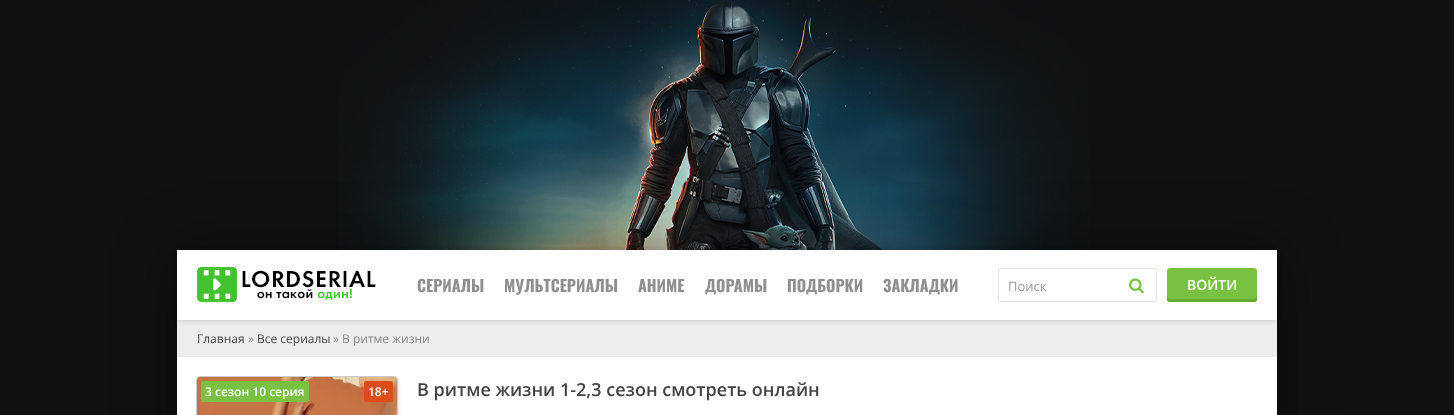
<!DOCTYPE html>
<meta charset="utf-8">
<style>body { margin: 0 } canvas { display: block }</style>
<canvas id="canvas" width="1454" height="415"></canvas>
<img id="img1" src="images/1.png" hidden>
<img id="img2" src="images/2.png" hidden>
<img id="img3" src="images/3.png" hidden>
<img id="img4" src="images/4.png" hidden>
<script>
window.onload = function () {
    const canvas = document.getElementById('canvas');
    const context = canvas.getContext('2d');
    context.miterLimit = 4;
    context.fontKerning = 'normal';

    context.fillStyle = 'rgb(17, 17, 17)';
    context.fillRect(0, 0, 1454, 415);
    context.drawImage(document.getElementById('img1'), 338, 0, 751, 250);
    context.fillStyle = 'rgba(0, 0, 0, 0.5)';
    context.filter = 'blur(30px)';
    context.beginPath();
    context.rect(177, 250, 1100, 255);
    context.fill();
    context.filter = 'none';
    context.fillStyle = 'rgb(237, 237, 237)';
    context.fillRect(177, 320, 1100, 37);
    context.fillStyle = 'rgba(0, 0, 0, 0.15)';
    context.filter = 'blur(2.5px)';
    context.beginPath();
    context.rect(177, 251, 1100, 70);
    context.fill();
    context.filter = 'none';
    context.fillStyle = 'rgb(255, 255, 255)';
    context.fillRect(177, 250, 1100, 70);
    context.drawImage(document.getElementById('img2'), 197, 267, 179, 35);
    context.beginPath();
    context.roundRect(998.5, 268.5, 158, 33, 2.5);
    context.strokeStyle = 'rgb(227, 227, 227)';
    context.stroke();
    context.drawImage(document.getElementById('img3'), 1129, 278, 15, 16);
    context.fillStyle = 'rgb(121, 193, 66)';
    context.beginPath();
    context.roundRect(1167, 268, 90, 34, 3);
    context.fill();
    context.fillStyle = 'rgb(102, 170, 51)';
    context.beginPath();
    context.moveTo(1167, 296);
    context.lineTo(1167, 299);
    context.bezierCurveTo(1167, 301, 1168, 302, 1170, 302);
    context.lineTo(1254, 302);
    context.bezierCurveTo(1256, 302, 1257, 301, 1257, 299);
    context.lineTo(1257, 296);
    context.bezierCurveTo(1257, 298, 1256, 299, 1254, 299);
    context.lineTo(1170, 299);
    context.bezierCurveTo(1168, 299, 1167, 298, 1167, 296);
    context.closePath();
    context.fill();
    context.fillStyle = 'rgb(255, 255, 255)';
    context.fillRect(177, 357, 1100, 58);
    context.fillStyle = 'rgba(0, 0, 0, 0.1)';
    context.filter = 'blur(1.5px)';
    context.beginPath();
    context.roundRect(199, 380, 200, 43, 3);
    context.fill();
    context.filter = 'none';
    context.beginPath();
    context.roundRect(196.5, 376.5, 201, 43, 3.5);
    context.strokeStyle = 'rgb(204, 204, 204)';
    context.stroke();
    context.drawImage(document.getElementById('img4'), 197, 377, 200, 38);
    context.fillStyle = 'rgb(121, 193, 66)';
    context.beginPath();
    context.roundRect(201, 381, 108, 21, 2);
    context.fill();
    context.fillStyle = 'rgb(221, 77, 27)';
    context.beginPath();
    context.roundRect(364, 381, 29, 21, 2);
    context.fill();
    context.font = 'bold 16px Oswald';
    context.fillStyle = 'rgb(143, 143, 143)';
    context.fillText('СЕРИАЛЫ', 417, 292);
    context.fillText('МУЛЬТСЕРИАЛЫ', 504, 292);
    context.fillText('АНИМЕ', 638, 292);
    context.fillText('ДОРАМЫ', 705, 292);
    context.fillText('ПОДБОРКИ', 787, 292);
    context.fillText('ЗАКЛАДКИ', 883, 292);
    context.font = '13px Open Sans';
    context.fillStyle = 'rgb(153, 153, 153)';
    context.fillText('Поиск', 1008, 291);
    context.font = '600 14px Open Sans';
    context.fillStyle = 'rgb(255, 255, 255)';
    context.fillText('ВОЙТИ', 1187, 290);
    context.font = '12px Open Sans';
    context.fillStyle = 'rgb(68, 68, 68)';
    context.fillText('Главная', 197, 343);
    context.fillStyle = 'rgb(136, 136, 136)';
    context.fillText('»', 248, 343);
    context.fillStyle = 'rgb(68, 68, 68)';
    context.fillText('Все сериалы', 257, 343);
    context.fillStyle = 'rgb(136, 136, 136)';
    context.fillText('» В ритме жизни', 333, 343);
    context.font = '600 12px Open Sans';
    context.fillStyle = 'rgb(255, 255, 255)';
    context.fillText('3 сезон 10 серия', 205, 396);
    context.fillText('18+', 368, 396);
    context.font = '600 18px Open Sans';
    context.fillStyle = 'rgb(68, 68, 68)';
    context.fillText('В ритме жизни 1-2,3 сезон смотреть онлайн', 417, 396);
};
</script>
